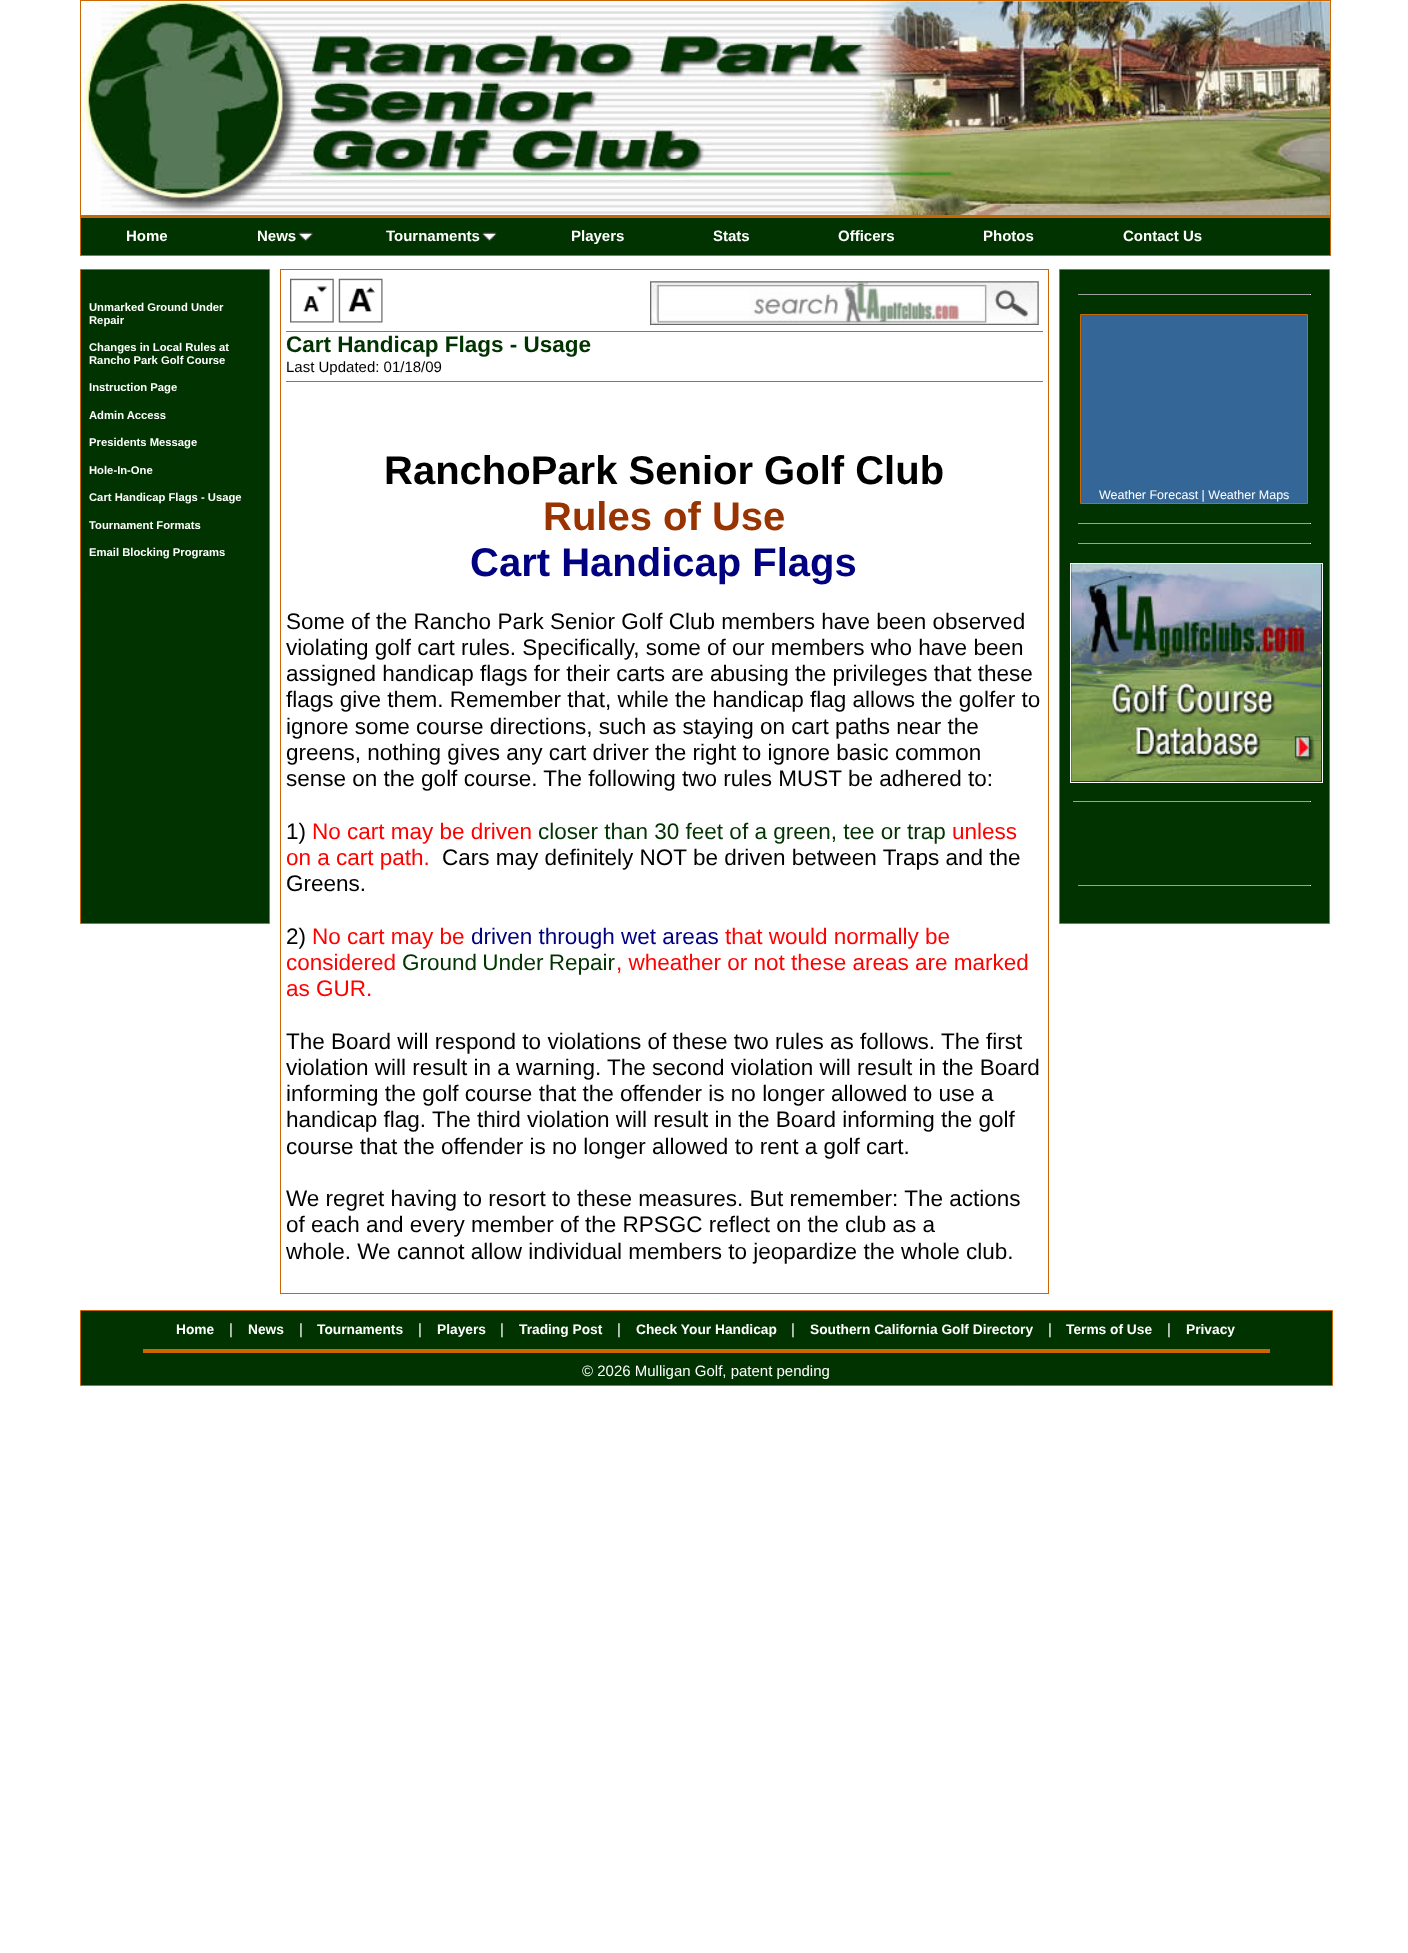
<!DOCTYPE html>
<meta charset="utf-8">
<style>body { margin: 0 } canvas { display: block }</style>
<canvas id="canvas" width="1408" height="1953"></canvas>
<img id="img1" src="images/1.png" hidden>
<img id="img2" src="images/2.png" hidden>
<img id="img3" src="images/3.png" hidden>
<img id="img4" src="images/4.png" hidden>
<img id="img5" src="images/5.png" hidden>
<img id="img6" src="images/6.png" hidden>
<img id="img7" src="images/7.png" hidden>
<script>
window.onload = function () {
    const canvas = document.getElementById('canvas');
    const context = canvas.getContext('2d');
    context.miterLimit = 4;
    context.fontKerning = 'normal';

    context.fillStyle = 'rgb(255, 255, 255)';
    context.fillRect(0, 0, 1408, 1953);
    context.strokeStyle = 'rgb(204, 102, 0)';
    context.strokeRect(80.5, 0.5, 1250, 255);
    context.drawImage(document.getElementById('img1'), 81, 1, 1249, 214);
    context.fillStyle = 'rgb(204, 102, 0)';
    context.fillRect(81, 215, 1249, 3);
    context.fillStyle = 'rgb(0, 51, 0)';
    context.fillRect(81, 218, 1249, 37);
    context.drawImage(document.getElementById('img2'), 298, 232, 15, 10);
    context.drawImage(document.getElementById('img3'), 482, 232, 15, 10);
    context.beginPath();
    context.rect(80.5, 269.5, 189, 654);
    context.fill();
    context.stroke();
    context.strokeRect(280.5, 269.5, 768, 1024);
    context.fillStyle = 'rgb(204, 102, 0)';
    context.fillRect(286, 331, 757, 1);
    context.drawImage(document.getElementById('img4'), 290, 278, 44, 45);
    context.drawImage(document.getElementById('img5'), 338, 278, 45, 45);
    context.drawImage(document.getElementById('img6'), 650, 281, 389, 44);
    context.fillRect(286, 381, 757, 1);
    context.fillStyle = 'rgb(0, 51, 0)';
    context.beginPath();
    context.rect(1059.5, 269.5, 270, 654);
    context.fill();
    context.stroke();
    context.fillStyle = 'rgb(159, 159, 159)';
    context.fillRect(1078, 294, 233, 1);
    context.fillStyle = 'rgb(238, 238, 238)';
    context.fillRect(1310, 294, 1, 1);
    context.fillStyle = 'rgb(52, 103, 151)';
    context.beginPath();
    context.rect(1080.5, 314.5, 227, 189);
    context.fill();
    context.stroke();
    context.fillStyle = 'rgb(159, 159, 159)';
    context.fillRect(1078, 523, 233, 1);
    context.fillStyle = 'rgb(238, 238, 238)';
    context.fillRect(1310, 523, 1, 1);
    context.fillStyle = 'rgb(159, 159, 159)';
    context.fillRect(1078, 543, 233, 1);
    context.fillStyle = 'rgb(238, 238, 238)';
    context.fillRect(1310, 543, 1, 1);
    context.strokeStyle = 'rgb(255, 255, 255)';
    context.strokeRect(1070.5, 563.5, 252, 219);
    context.drawImage(document.getElementById('img7'), 1071, 563, 251, 219);
    context.fillStyle = 'rgb(159, 159, 159)';
    context.fillRect(1073, 801, 238, 1);
    context.fillStyle = 'rgb(238, 238, 238)';
    context.fillRect(1310, 801, 1, 1);
    context.fillStyle = 'rgb(159, 159, 159)';
    context.fillRect(1078, 885, 233, 1);
    context.fillStyle = 'rgb(238, 238, 238)';
    context.fillRect(1310, 885, 1, 1);
    context.fillStyle = 'rgb(0, 51, 0)';
    context.beginPath();
    context.rect(80.5, 1310.5, 1252, 75);
    context.fill();
    context.strokeStyle = 'rgb(204, 102, 0)';
    context.stroke();
    context.fillStyle = 'rgb(204, 102, 0)';
    context.fillRect(143, 1349, 1127, 4);
    context.font = 'bold 15px Liberation Sans';
    context.fillStyle = 'rgb(255, 255, 255)';
    context.fillText('Home', 126, 241);
    context.fillText('News', 257, 241);
    context.fillText('Tournaments', 386, 241);
    context.fillText('Players', 571, 241);
    context.fillText('Stats', 713, 241);
    context.fillText('Officers', 838, 241);
    context.fillText('Photos', 983, 241);
    context.fillText('Contact Us', 1123, 241);
    context.font = 'bold 11.25px Liberation Sans';
    context.fillText('Unmarked Ground Under', 89, 311);
    context.fillText('Repair', 89, 324);
    context.fillText('Changes in Local Rules at', 89, 351);
    context.fillText('Rancho Park Golf Course', 89, 364);
    context.fillText('Instruction Page', 89, 391);
    context.fillText('Admin Access', 89, 419);
    context.fillText('Presidents Message', 89, 446);
    context.fillText('Hole-In-One', 89, 474);
    context.fillText('Cart Handicap Flags - Usage', 89, 501);
    context.fillText('Tournament Formats', 89, 529);
    context.fillText('Email Blocking Programs', 89, 556);
    context.font = 'bold 22.5px Liberation Sans';
    context.fillStyle = 'rgb(0, 51, 0)';
    context.fillText('Cart Handicap Flags - Usage', 286, 352);
    context.font = '15px Liberation Sans';
    context.fillStyle = 'rgb(0, 0, 0)';
    context.fillText('Last Updated: 01/18/09', 286, 372);
    context.font = 'bold 40px Liberation Sans';
    context.fillText('RanchoPark Senior Golf Club', 384, 484);
    context.fillStyle = 'rgb(153, 51, 0)';
    context.fillText('Rules of Use', 543, 530);
    context.fillStyle = 'rgb(0, 0, 128)';
    context.fillText('Cart Handicap Flags', 470, 576);
    context.font = '22.5px Liberation Sans';
    context.fillStyle = 'rgb(0, 0, 0)';
    context.fillText('Some of the Rancho Park Senior Golf Club members have been observed', 286, 629);
    context.fillText('violating golf cart rules. Specifically, some of our members who have been', 286, 655);
    context.fillText('assigned handicap flags for their carts are abusing the privileges that these', 286, 681);
    context.fillText('flags give them. Remember that, while the handicap flag allows the golfer to', 286, 707);
    context.fillText('ignore some course directions, such as staying on cart paths near the', 286, 734);
    context.fillText('greens, nothing gives any cart driver the right to ignore basic common', 286, 760);
    context.fillText('sense on the golf course. The following two rules MUST be adhered to:', 286, 786);
    context.fillText('1)', 286, 839);
    context.fillStyle = 'rgb(255, 0, 0)';
    context.fillText('No cart may be driven', 312, 839);
    context.fillStyle = 'rgb(0, 51, 0)';
    context.fillText('closer than 30 feet of a green, tee or trap', 538, 839);
    context.fillStyle = 'rgb(255, 0, 0)';
    context.fillText('unless', 952, 839);
    context.fillText('on a cart path.', 286, 865);
    context.fillStyle = 'rgb(0, 0, 0)';
    context.fillText('Cars may definitely NOT be driven between Traps and the', 442, 865);
    context.fillText('Greens.', 286, 891);
    context.fillText('2)', 286, 944);
    context.fillStyle = 'rgb(255, 0, 0)';
    context.fillText('No cart may be', 312, 944);
    context.fillStyle = 'rgb(0, 0, 128)';
    context.fillText('driven through wet areas', 471, 944);
    context.fillStyle = 'rgb(255, 0, 0)';
    context.fillText('that would normally be', 725, 944);
    context.fillText('considered', 286, 970);
    context.wordSpacing = '-1px';
    context.fillStyle = 'rgb(0, 51, 0)';
    context.fillText('Ground Under Repair', 402, 970);
    context.wordSpacing = '0px';
    context.fillStyle = 'rgb(255, 0, 0)';
    context.fillText(', wheather or not these areas are marked', 616, 970);
    context.fillText('as GUR.', 286, 996);
    context.fillStyle = 'rgb(0, 0, 0)';
    context.fillText('The Board will respond to violations of these two rules as follows. The first', 286, 1049);
    context.fillText('violation will result in a warning. The second violation will result in the Board', 286, 1075);
    context.fillText('informing the golf course that the offender is no longer allowed to use a', 286, 1101);
    context.fillText('handicap flag. The third violation will result in the Board informing the golf', 286, 1127);
    context.fillText('course that the offender is no longer allowed to rent a golf cart.', 286, 1154);
    context.fillText('We regret having to resort to these measures. But remember: The actions', 286, 1206);
    context.fillText('of each and every member of the RPSGC reflect on the club as a', 286, 1232);
    context.fillText('whole. We cannot allow individual members to jeopardize the whole club.', 286, 1259);
    context.font = '12.5px Liberation Sans';
    context.fillStyle = 'rgb(255, 255, 255)';
    context.fillText('Weather Forecast | Weather Maps', 1099, 499);
    context.font = 'bold 13.75px Liberation Sans';
    context.fillText('Home', 176, 1334);
    context.font = '15px Liberation Sans';
    context.fillText('|', 229, 1334);
    context.font = 'bold 13.75px Liberation Sans';
    context.fillText('News', 248, 1334);
    context.font = '15px Liberation Sans';
    context.fillText('|', 299, 1334);
    context.font = 'bold 13.75px Liberation Sans';
    context.fillText('Tournaments', 317, 1334);
    context.font = '15px Liberation Sans';
    context.fillText('|', 418, 1334);
    context.font = 'bold 13.75px Liberation Sans';
    context.fillText('Players', 437, 1334);
    context.font = '15px Liberation Sans';
    context.fillText('|', 500, 1334);
    context.font = 'bold 13.75px Liberation Sans';
    context.fillText('Trading Post', 519, 1334);
    context.font = '15px Liberation Sans';
    context.fillText('|', 617, 1334);
    context.font = 'bold 13.75px Liberation Sans';
    context.fillText('Check Your Handicap', 636, 1334);
    context.font = '15px Liberation Sans';
    context.fillText('|', 791, 1334);
    context.font = 'bold 13.75px Liberation Sans';
    context.fillText('Southern California Golf Directory', 810, 1334);
    context.font = '15px Liberation Sans';
    context.fillText('|', 1048, 1334);
    context.font = 'bold 13.75px Liberation Sans';
    context.fillText('Terms of Use', 1066, 1334);
    context.font = '15px Liberation Sans';
    context.fillText('|', 1167, 1334);
    context.font = 'bold 13.75px Liberation Sans';
    context.fillText('Privacy', 1186, 1334);
    context.font = '15px Liberation Sans';
    context.fillText('© 2026 Mulligan Golf, patent pending', 582, 1376);
};
</script>
